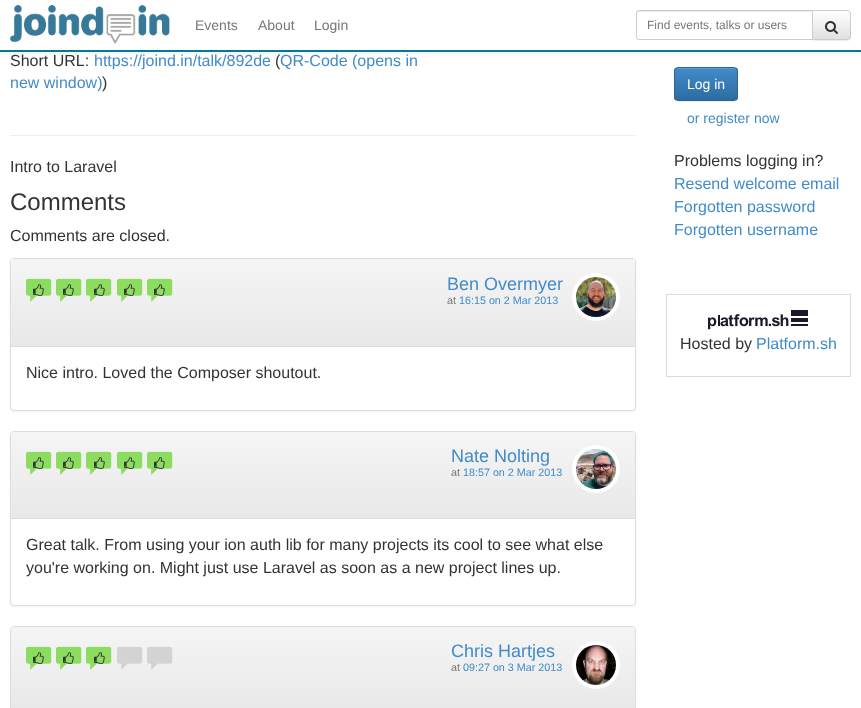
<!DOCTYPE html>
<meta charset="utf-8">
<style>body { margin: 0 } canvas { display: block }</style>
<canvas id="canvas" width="861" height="708"></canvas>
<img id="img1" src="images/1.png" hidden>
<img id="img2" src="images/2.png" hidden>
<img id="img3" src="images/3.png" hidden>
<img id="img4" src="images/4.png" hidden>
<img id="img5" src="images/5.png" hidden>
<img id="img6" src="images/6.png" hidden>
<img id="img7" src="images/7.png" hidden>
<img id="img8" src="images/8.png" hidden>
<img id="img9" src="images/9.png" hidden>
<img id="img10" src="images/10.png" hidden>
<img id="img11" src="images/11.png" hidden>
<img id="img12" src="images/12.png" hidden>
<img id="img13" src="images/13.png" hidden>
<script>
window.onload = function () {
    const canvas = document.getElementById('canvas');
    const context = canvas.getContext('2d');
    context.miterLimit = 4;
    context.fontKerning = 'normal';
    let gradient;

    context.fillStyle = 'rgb(255, 255, 255)';
    context.fillRect(0, 0, 861, 708);
    context.fillStyle = 'rgba(0, 0, 0, 0.07)';
    context.filter = 'blur(2.5px)';
    context.beginPath();
    context.rect(0, 1, 861, 52);
    context.fill();
    context.filter = 'none';
    context.fillStyle = 'rgb(255, 255, 255)';
    context.fillRect(0, 0, 861, 50);
    context.fillStyle = 'rgb(0, 123, 151)';
    context.fillRect(0, 50, 861, 2);
    context.drawImage(document.getElementById('img1'), 10, 5, 160, 39);
    context.fillStyle = 'rgba(0, 0, 0, 0.07)';
    context.filter = 'blur(0.5px)';
    context.beginPath();
    context.roundRect(812, 11, 39, 30, 4);
    context.fill();
    context.filter = 'none';
    context.save();
    context.beginPath();
    context.roundRect(812, 10, 39, 30, [0, 4, 4, 0]);
    context.clip();
    gradient = context.createLinearGradient(832, 11, 832, 39);
    gradient.addColorStop(0, 'rgb(255, 255, 255)');
    gradient.addColorStop(1, 'rgb(224, 224, 224)');
    context.fillStyle = gradient;
    context.fillRect(813, 11, 38, 28);
    context.restore();
    context.beginPath();
    context.roundRect(812.5, 10.5, 38, 29, [0, 3.5, 3.5, 0]);
    context.strokeStyle = 'rgb(204, 204, 204)';
    context.stroke();
    context.fillStyle = 'rgb(255, 255, 255)';
    context.beginPath();
    context.roundRect(636, 10, 177, 30, [3, 0, 0, 3]);
    context.fill();
    context.fillStyle = 'rgb(236, 236, 236)';
    context.beginPath();
    context.moveTo(639, 12);
    context.lineTo(812, 12);
    context.lineTo(812, 11);
    context.lineTo(638, 11);
    context.bezierCurveTo(637, 12, 637, 13, 637, 14);
    context.bezierCurveTo(637, 13, 638, 12, 639, 12);
    context.closePath();
    context.fill();
    context.beginPath();
    context.roundRect(636.5, 10.5, 176, 29, [2.5, 0, 0, 2.5]);
    context.stroke();
    context.drawImage(document.getElementById('img2'), 825, 21, 13, 13);
    context.fillStyle = 'rgb(238, 238, 238)';
    context.fillRect(10, 135, 626, 1);
    context.fillStyle = 'rgba(0, 0, 0, 0.05)';
    context.filter = 'blur(1px)';
    context.beginPath();
    context.roundRect(10, 259, 626, 153, 4);
    context.fill();
    context.filter = 'none';
    context.fillStyle = 'rgb(255, 255, 255)';
    context.beginPath();
    context.roundRect(10.5, 258.5, 625, 152, 3.5);
    context.fill();
    context.strokeStyle = 'rgb(221, 221, 221)';
    context.stroke();
    gradient = context.createLinearGradient(323, 259, 323, 346);
    gradient.addColorStop(0, 'rgb(245, 245, 245)');
    gradient.addColorStop(1, 'rgb(232, 232, 232)');
    context.fillStyle = gradient;
    context.beginPath();
    context.roundRect(11, 259, 624, 87, [3, 3, 0, 0]);
    context.fill();
    context.fillStyle = 'rgb(221, 221, 221)';
    context.fillRect(11, 346, 624, 1);
    context.drawImage(document.getElementById('img3'), 26, 278, 26, 24);
    context.drawImage(document.getElementById('img4'), 33, 284, 11, 12);
    context.drawImage(document.getElementById('img3'), 56, 278, 26, 24);
    context.drawImage(document.getElementById('img4'), 63, 284, 11, 12);
    context.drawImage(document.getElementById('img3'), 86, 278, 26, 24);
    context.drawImage(document.getElementById('img5'), 94, 284, 11, 12);
    context.drawImage(document.getElementById('img3'), 117, 278, 26, 24);
    context.drawImage(document.getElementById('img4'), 124, 284, 11, 12);
    context.drawImage(document.getElementById('img3'), 147, 278, 26, 24);
    context.drawImage(document.getElementById('img4'), 154, 284, 11, 12);
    context.beginPath();
    context.arc(596, 297, 22, 0, 2 * Math.PI);
    context.strokeStyle = 'rgb(255, 255, 255)';
    context.lineWidth = 4;
    context.stroke();
    context.drawImage(document.getElementById('img6'), 576, 277, 40, 40);
    context.fillStyle = 'rgba(0, 0, 0, 0.05)';
    context.filter = 'blur(1px)';
    context.beginPath();
    context.roundRect(10, 432, 626, 175, 4);
    context.fill();
    context.filter = 'none';
    context.fillStyle = 'rgb(255, 255, 255)';
    context.beginPath();
    context.roundRect(10.5, 431.5, 625, 174, 3.5);
    context.fill();
    context.strokeStyle = 'rgb(221, 221, 221)';
    context.lineWidth = 1;
    context.stroke();
    gradient = context.createLinearGradient(323, 432, 323, 518);
    gradient.addColorStop(0, 'rgb(245, 245, 245)');
    gradient.addColorStop(1, 'rgb(232, 232, 232)');
    context.fillStyle = gradient;
    context.beginPath();
    context.roundRect(11, 432, 624, 86, [3, 3, 0, 0]);
    context.fill();
    context.fillStyle = 'rgb(221, 221, 221)';
    context.fillRect(11, 518, 624, 1);
    context.drawImage(document.getElementById('img7'), 26, 451, 26, 24);
    context.drawImage(document.getElementById('img8'), 33, 457, 11, 12);
    context.drawImage(document.getElementById('img7'), 56, 451, 26, 24);
    context.drawImage(document.getElementById('img8'), 63, 457, 11, 12);
    context.drawImage(document.getElementById('img7'), 86, 451, 26, 24);
    context.drawImage(document.getElementById('img9'), 94, 457, 11, 12);
    context.drawImage(document.getElementById('img7'), 117, 451, 26, 24);
    context.drawImage(document.getElementById('img8'), 124, 457, 11, 12);
    context.drawImage(document.getElementById('img7'), 147, 451, 26, 24);
    context.drawImage(document.getElementById('img8'), 154, 457, 11, 12);
    context.beginPath();
    context.arc(596, 469, 22, 0, 2 * Math.PI);
    context.strokeStyle = 'rgb(255, 255, 255)';
    context.lineWidth = 4;
    context.stroke();
    context.drawImage(document.getElementById('img10'), 576, 449, 40, 40);
    context.beginPath();
    context.roundRect(10.5, 626.5, 625, 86, 3.5);
    context.strokeStyle = 'rgb(221, 221, 221)';
    context.lineWidth = 1;
    context.stroke();
    gradient = context.createLinearGradient(323, 627, 323, 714);
    gradient.addColorStop(0, 'rgb(245, 245, 245)');
    gradient.addColorStop(1, 'rgb(232, 232, 232)');
    context.fillStyle = gradient;
    context.beginPath();
    context.moveTo(14, 627);
    context.lineTo(632, 627);
    context.bezierCurveTo(633.5, 627, 635, 628.5, 635, 630);
    context.lineTo(635, 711);
    context.lineTo(11, 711);
    context.lineTo(11, 630);
    context.bezierCurveTo(11, 628.5, 12.5, 627, 14, 627);
    context.closePath();
    context.fill();
    context.drawImage(document.getElementById('img3'), 26, 646, 26, 24);
    context.drawImage(document.getElementById('img4'), 33, 652, 11, 12);
    context.drawImage(document.getElementById('img3'), 56, 646, 26, 24);
    context.drawImage(document.getElementById('img4'), 63, 652, 11, 12);
    context.drawImage(document.getElementById('img3'), 86, 646, 26, 24);
    context.drawImage(document.getElementById('img5'), 94, 652, 11, 12);
    context.drawImage(document.getElementById('img11'), 117, 646, 26, 24);
    context.drawImage(document.getElementById('img11'), 147, 646, 26, 24);
    context.beginPath();
    context.arc(596, 665, 22, 0, 2 * Math.PI);
    context.strokeStyle = 'rgb(255, 255, 255)';
    context.lineWidth = 4;
    context.stroke();
    context.drawImage(document.getElementById('img12'), 576, 645, 40, 40);
    context.fillStyle = 'rgba(0, 0, 0, 0.07)';
    context.filter = 'blur(0.5px)';
    context.beginPath();
    context.roundRect(674, 68, 64, 34, 4);
    context.fill();
    context.filter = 'none';
    context.save();
    context.beginPath();
    context.roundRect(674, 67, 64, 34, 4);
    context.clip();
    gradient = context.createLinearGradient(706, 68, 706, 100);
    gradient.addColorStop(0, 'rgb(66, 139, 202)');
    gradient.addColorStop(1, 'rgb(45, 108, 162)');
    context.fillStyle = gradient;
    context.fillRect(674, 68, 64, 32);
    context.restore();
    context.fillStyle = 'rgb(94, 156, 209)';
    context.beginPath();
    context.moveTo(678, 69);
    context.lineTo(734, 69);
    context.bezierCurveTo(736, 69, 737, 70, 737, 72);
    context.bezierCurveTo(737, 66, 729, 68, 725, 68);
    context.lineTo(687, 68);
    context.bezierCurveTo(683, 68, 675, 66, 675, 72);
    context.bezierCurveTo(675, 70, 676, 69, 678, 69);
    context.closePath();
    context.fill();
    context.beginPath();
    context.roundRect(674.5, 67.5, 63, 33, 3.5);
    context.strokeStyle = 'rgb(43, 102, 154)';
    context.lineWidth = 1;
    context.stroke();
    context.strokeStyle = 'rgb(215, 220, 223)';
    context.strokeRect(666.5, 294.5, 184, 82);
    context.drawImage(document.getElementById('img13'), 708, 310, 100, 20);
    context.font = '14px Liberation Sans';
    context.fillStyle = 'rgb(119, 119, 119)';
    context.fillText('Events', 195, 30);
    context.fillText('About', 258, 30);
    context.fillText('Login', 314, 30);
    context.font = '12px Liberation Sans';
    context.fillText('Find events, talks or users', 647, 29);
    context.font = '16px Liberation Sans';
    context.fillStyle = 'rgb(51, 51, 51)';
    context.fillText('Short URL:', 10, 66);
    context.fillStyle = 'rgb(66, 139, 202)';
    context.fillText('https://joind.in/talk/892de', 94, 66);
    context.fillStyle = 'rgb(51, 51, 51)';
    context.fillText('(', 275, 66);
    context.fillStyle = 'rgb(66, 139, 202)';
    context.fillText('QR-Code (opens in', 280, 66);
    context.fillText('new window)', 10, 88);
    context.fillStyle = 'rgb(51, 51, 51)';
    context.fillText(')', 102, 88);
    context.fillText('Intro to Laravel', 10, 172);
    context.font = '24px Liberation Sans';
    context.fillText('Comments', 10, 210);
    context.font = '16px Liberation Sans';
    context.fillText('Comments are closed.', 10, 241);
    context.font = '18px Liberation Sans';
    context.fillStyle = 'rgb(66, 139, 202)';
    context.fillText('Ben Overmyer', 447, 290);
    context.font = '10.75px Liberation Sans';
    context.fillStyle = 'rgb(119, 119, 119)';
    context.fillText('at', 447, 304);
    context.fillStyle = 'rgb(66, 139, 202)';
    context.fillText('16:15 on 2 Mar 2013', 459, 304);
    context.font = '16px Liberation Sans';
    context.fillStyle = 'rgb(51, 51, 51)';
    context.fillText('Nice intro. Loved the Composer shoutout.', 26, 378);
    context.font = '18px Liberation Sans';
    context.fillStyle = 'rgb(66, 139, 202)';
    context.fillText('Nate Nolting', 451, 462);
    context.font = '10.75px Liberation Sans';
    context.fillStyle = 'rgb(119, 119, 119)';
    context.fillText('at', 451, 476);
    context.fillStyle = 'rgb(66, 139, 202)';
    context.fillText('18:57 on 2 Mar 2013', 463, 476);
    context.font = '16px Liberation Sans';
    context.fillStyle = 'rgb(51, 51, 51)';
    context.fillText('Great talk. From using your ion auth lib for many projects its cool to see what else', 26, 550);
    context.fillText('you\'re working on. Might just use Laravel as soon as a new project lines up.', 26, 573);
    context.font = '18px Liberation Sans';
    context.fillStyle = 'rgb(66, 139, 202)';
    context.fillText('Chris Hartjes', 451, 657);
    context.font = '10.75px Liberation Sans';
    context.fillStyle = 'rgb(119, 119, 119)';
    context.fillText('at', 451, 671);
    context.fillStyle = 'rgb(66, 139, 202)';
    context.fillText('09:27 on 3 Mar 2013', 463, 671);
    context.font = '14px Liberation Sans';
    context.fillStyle = 'rgb(255, 255, 255)';
    context.fillText('Log in', 687, 89);
    context.fillStyle = 'rgb(66, 139, 202)';
    context.fillText('or register now', 687, 123);
    context.font = '16px Liberation Sans';
    context.fillStyle = 'rgb(51, 51, 51)';
    context.fillText('Problems logging in?', 674, 166);
    context.fillStyle = 'rgb(66, 139, 202)';
    context.fillText('Resend welcome email', 674, 189);
    context.fillText('Forgotten password', 674, 212);
    context.fillText('Forgotten username', 674, 235);
    context.fillStyle = 'rgb(51, 51, 51)';
    context.fillText('Hosted by', 680, 349);
    context.fillStyle = 'rgb(66, 139, 202)';
    context.fillText('Platform.sh', 756, 349);
};
</script>
